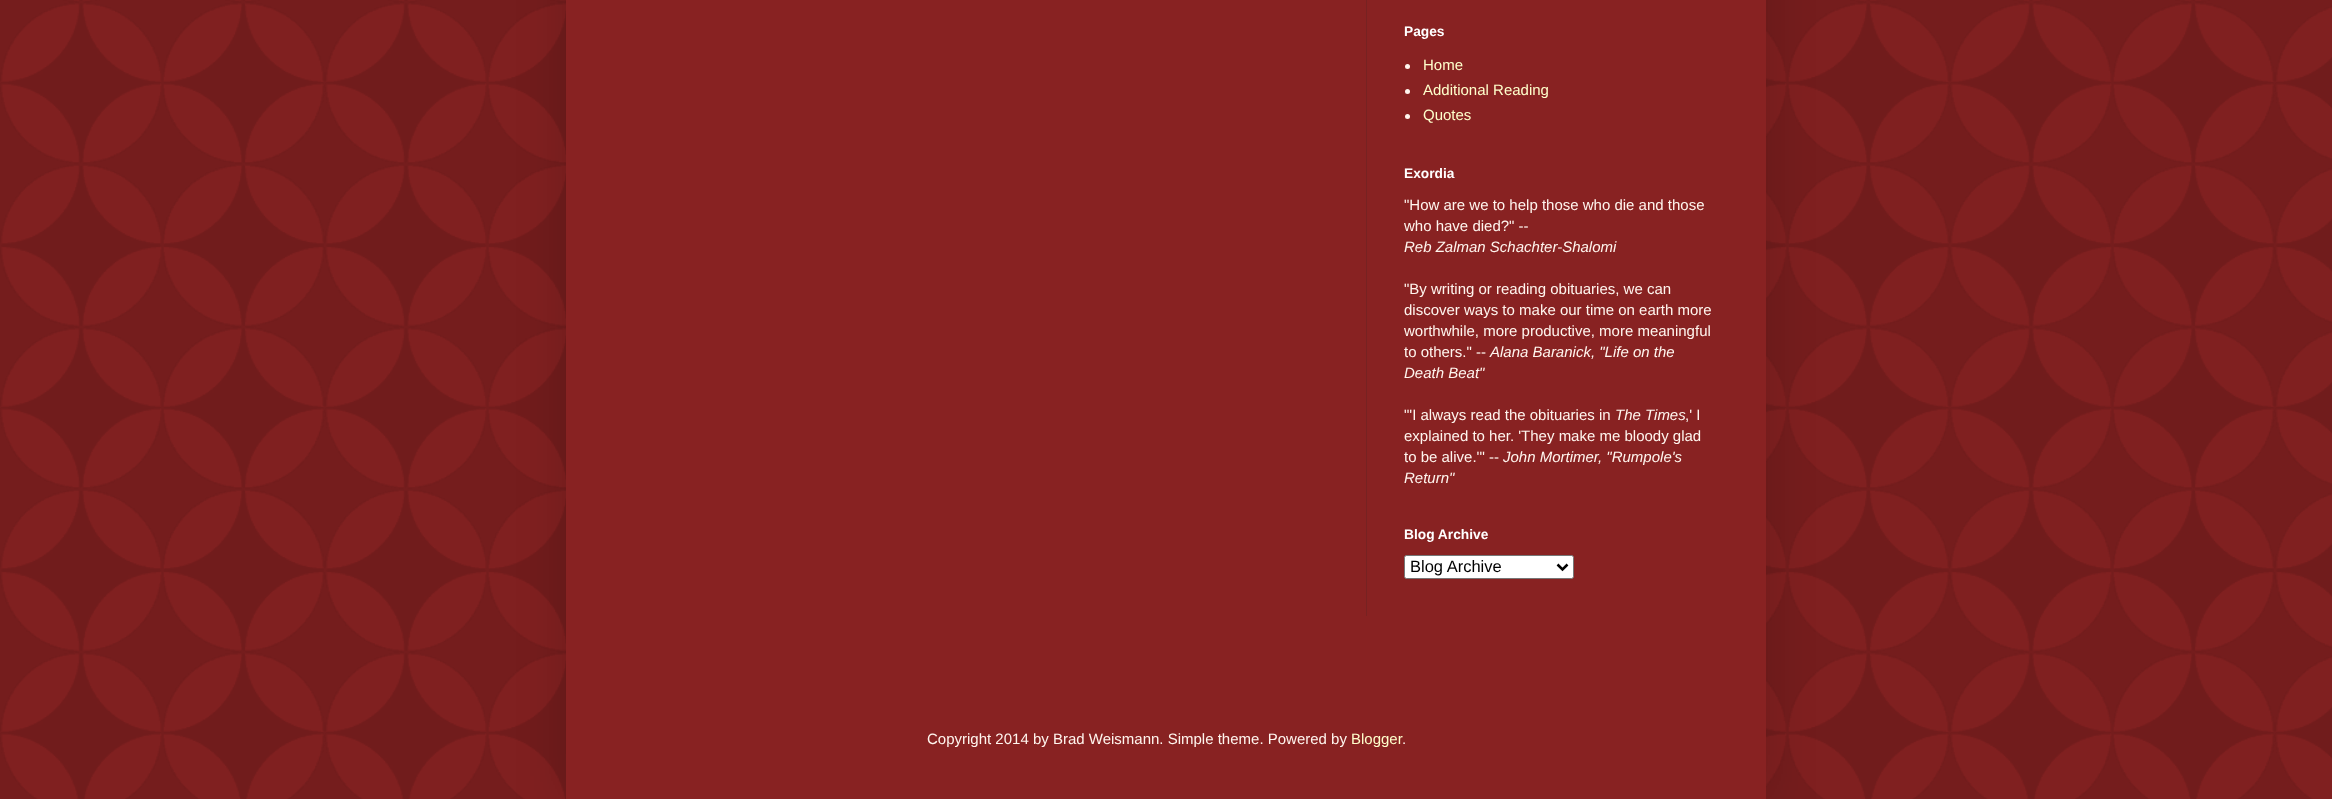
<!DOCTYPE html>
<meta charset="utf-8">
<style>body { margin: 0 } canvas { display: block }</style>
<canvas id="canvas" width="2332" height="799"></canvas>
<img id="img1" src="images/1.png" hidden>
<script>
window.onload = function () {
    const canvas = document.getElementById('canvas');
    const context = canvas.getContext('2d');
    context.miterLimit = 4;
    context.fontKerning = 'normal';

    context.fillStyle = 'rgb(136, 34, 34)';
    context.fillRect(0, 0, 2332, 799);
    context.drawImage(document.getElementById('img1'), 0, 0, 2332, 799);
    context.fillStyle = 'rgba(0, 0, 0, 0.15)';
    context.filter = 'blur(25px)';
    context.beginPath();
    context.rect(566, -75, 1200, 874);
    context.fill();
    context.filter = 'none';
    context.fillStyle = 'rgb(136, 34, 34)';
    context.fillRect(566, 0, 1200, 799);
    context.fillStyle = 'rgb(119, 34, 34)';
    context.fillRect(1366, 0, 1, 616);
    context.fillStyle = 'rgb(255, 245, 238)';
    context.beginPath();
    context.arc(1407.5, 66.5, 2.5, 0, 2 * Math.PI);
    context.fill();
    context.beginPath();
    context.arc(1407.5, 91.5, 2.5, 0, 2 * Math.PI);
    context.fill();
    context.beginPath();
    context.arc(1407.5, 116.5, 2.5, 0, 2 * Math.PI);
    context.fill();
    context.fillStyle = 'rgb(255, 255, 255)';
    context.beginPath();
    context.roundRect(1404.5, 555.5, 169, 23, 2);
    context.fill();
    context.strokeStyle = 'rgb(118, 118, 118)';
    context.stroke();
    context.beginPath();
    context.moveTo(1557.5, 564.5);
    context.lineTo(1562.5, 569.5);
    context.lineTo(1567.5, 564.5);
    context.strokeStyle = 'rgb(0, 0, 0)';
    context.lineWidth = 2.5;
    context.stroke();
    context.font = 'bold 13.75px Liberation Sans';
    context.fillText('Pages', 1404, 36);
    context.font = '15px Liberation Sans';
    context.fillStyle = 'rgb(255, 255, 204)';
    context.fillText('Home', 1423, 70);
    context.fillText('Additional Reading', 1423, 95);
    context.fillText('Quotes', 1423, 120);
    context.font = 'bold 13.75px Liberation Sans';
    context.fillStyle = 'rgb(255, 255, 255)';
    context.fillText('Exordia', 1404, 178);
    context.font = '15px Liberation Sans';
    context.fillStyle = 'rgb(255, 245, 238)';
    context.fillText('"How are we to help those who die and those', 1404, 210);
    context.fillText('who have died?" --', 1404, 231);
    context.font = 'italic 15px Liberation Sans';
    context.fillText('Reb Zalman Schachter-Shalomi', 1404, 252);
    context.font = '15px Liberation Sans';
    context.fillText('"By writing or reading obituaries, we can', 1404, 294);
    context.fillText('discover ways to make our time on earth more', 1404, 315);
    context.fillText('worthwhile, more productive, more meaningful', 1404, 336);
    context.fillText('to others." --', 1404, 357);
    context.font = 'italic 15px Liberation Sans';
    context.fillText('Alana Baranick, "Life on the', 1490, 357);
    context.fillText('Death Beat"', 1404, 378);
    context.font = '15px Liberation Sans';
    context.fillText('"\'I always read the obituaries in', 1404, 420);
    context.font = 'italic 15px Liberation Sans';
    context.fillText('The Times', 1615, 420);
    context.font = '15px Liberation Sans';
    context.fillText(',\' I', 1685, 420);
    context.fillText('explained to her. \'They make me bloody glad', 1404, 441);
    context.fillText('to be alive.\'" --', 1404, 462);
    context.font = 'italic 15px Liberation Sans';
    context.fillText('John Mortimer, "Rumpole\'s', 1503, 462);
    context.fillText('Return"', 1404, 483);
    context.font = 'bold 13.75px Liberation Sans';
    context.fillStyle = 'rgb(255, 255, 255)';
    context.fillText('Blog Archive', 1404, 539);
    context.font = '16.5px Liberation Sans';
    context.fillStyle = 'rgb(0, 0, 0)';
    context.fillText('Blog Archive', 1410, 572);
    context.font = '15px Liberation Sans';
    context.fillStyle = 'rgb(255, 245, 238)';
    context.fillText('Copyright 2014 by Brad Weismann. Simple theme. Powered by', 927, 744);
    context.fillStyle = 'rgb(255, 255, 204)';
    context.fillText('Blogger', 1351, 744);
    context.fillStyle = 'rgb(255, 245, 238)';
    context.fillText('.', 1402, 744);
};
</script>
